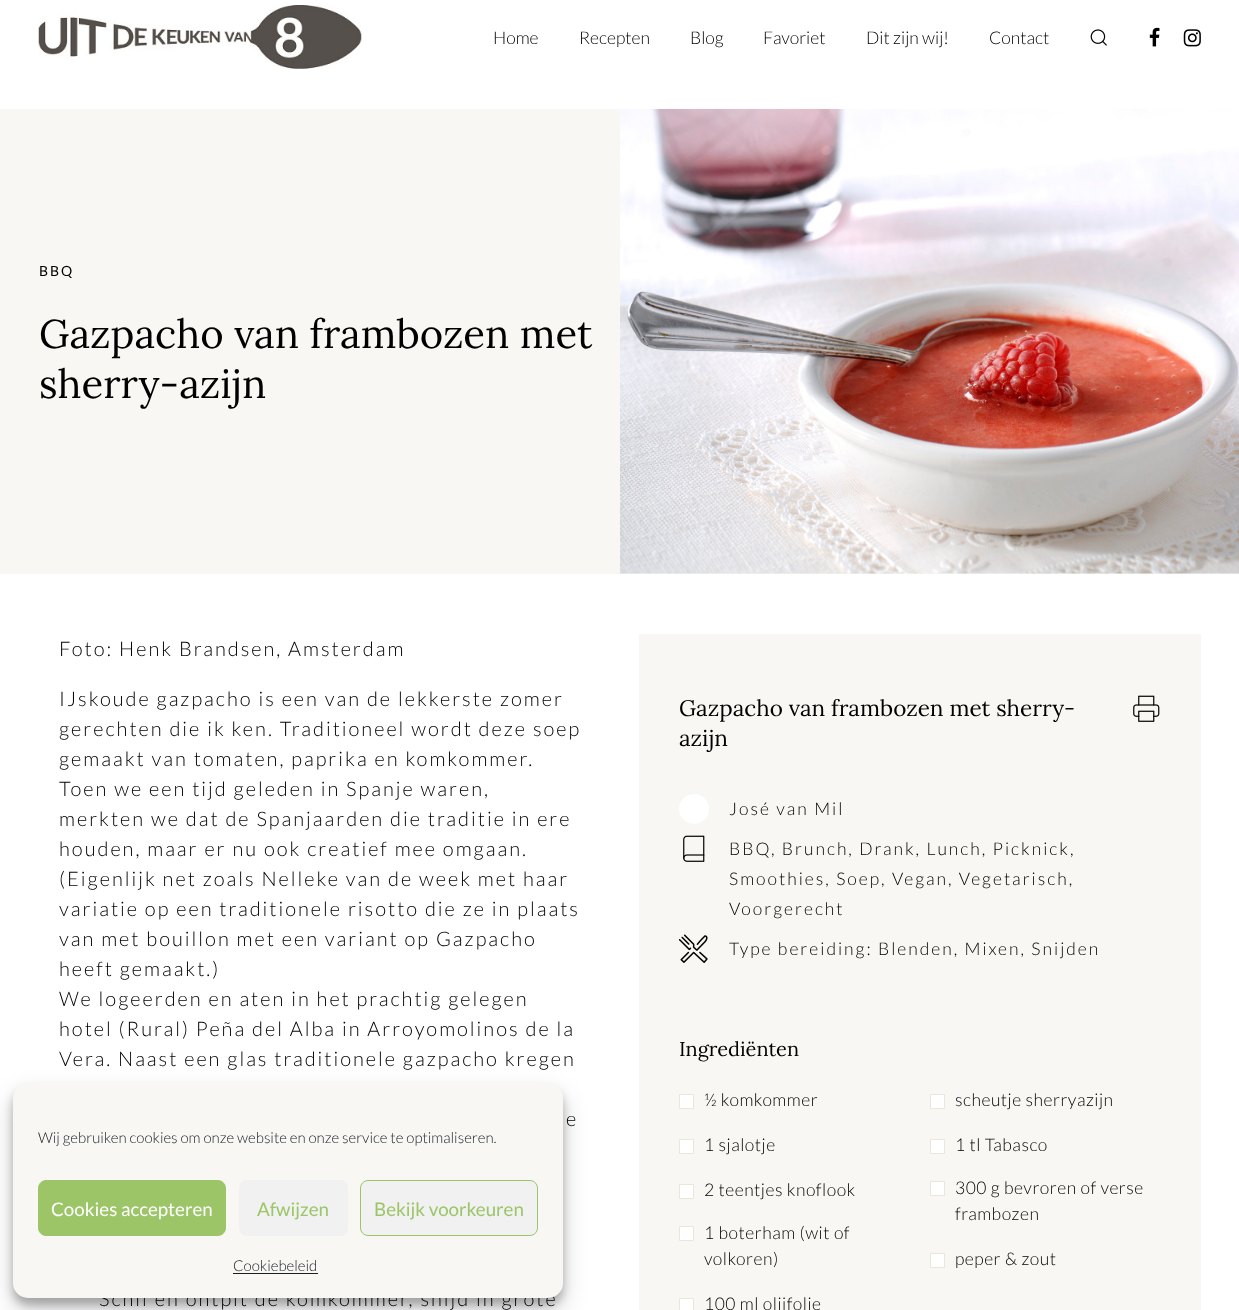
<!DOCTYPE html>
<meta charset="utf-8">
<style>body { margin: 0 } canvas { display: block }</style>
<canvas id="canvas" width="1239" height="1310"></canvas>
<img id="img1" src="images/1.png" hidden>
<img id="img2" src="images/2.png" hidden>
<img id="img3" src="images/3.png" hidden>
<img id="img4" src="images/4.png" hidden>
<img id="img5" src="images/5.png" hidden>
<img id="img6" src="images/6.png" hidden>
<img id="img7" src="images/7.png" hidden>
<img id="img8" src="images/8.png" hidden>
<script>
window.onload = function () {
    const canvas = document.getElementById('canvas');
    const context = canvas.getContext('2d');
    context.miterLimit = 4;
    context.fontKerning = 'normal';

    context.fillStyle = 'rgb(255, 255, 255)';
    context.fillRect(0, 0, 1239, 1310);
    context.drawImage(document.getElementById('img1'), 38, 5, 324, 64);
    context.drawImage(document.getElementById('img2'), 1090, 29, 17, 17);
    context.drawImage(document.getElementById('img3'), 1149, 27, 11, 20);
    context.drawImage(document.getElementById('img4'), 1183, 29, 18, 18);
    context.fillStyle = 'rgb(248, 247, 243)';
    context.fillRect(0, 109, 1239, 465);
    context.drawImage(document.getElementById('img5'), 620, 108, 619, 466);
    context.fillRect(639, 634, 562, 676);
    context.drawImage(document.getElementById('img6'), 1133, 695, 27, 27);
    context.fillStyle = 'rgb(255, 255, 255)';
    context.beginPath();
    context.arc(694, 809, 15, 0, 2 * Math.PI);
    context.fill();
    context.drawImage(document.getElementById('img7'), 683, 835, 22, 27);
    context.drawImage(document.getElementById('img8'), 679, 934, 29, 29);
    context.beginPath();
    context.rect(679.5, 1094.5, 14, 14);
    context.fill();
    context.strokeStyle = 'rgb(234, 230, 217)';
    context.stroke();
    context.beginPath();
    context.rect(930.5, 1094.5, 14, 14);
    context.fill();
    context.stroke();
    context.beginPath();
    context.rect(679.5, 1139.5, 14, 14);
    context.fill();
    context.stroke();
    context.beginPath();
    context.rect(930.5, 1139.5, 14, 14);
    context.fill();
    context.stroke();
    context.beginPath();
    context.rect(679.5, 1184.5, 14, 14);
    context.fill();
    context.stroke();
    context.beginPath();
    context.rect(930.5, 1181.5, 14, 14);
    context.fill();
    context.stroke();
    context.beginPath();
    context.rect(679.5, 1226.5, 14, 14);
    context.fill();
    context.stroke();
    context.beginPath();
    context.rect(930.5, 1253.5, 14, 14);
    context.fill();
    context.stroke();
    context.beginPath();
    context.rect(679.5, 1298.5, 14, 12);
    context.fill();
    context.stroke();
    context.fillStyle = 'rgba(0, 0, 0, 0.23)';
    context.filter = 'blur(4px)';
    context.beginPath();
    context.roundRect(13, 1090, 550, 215, 15);
    context.fill();
    context.filter = 'none';
    context.fillStyle = 'rgba(0, 0, 0, 0.19)';
    context.filter = 'blur(12.5px)';
    context.beginPath();
    context.roundRect(13, 1095, 550, 215, 15);
    context.fill();
    context.filter = 'none';
    context.font = '300 17.5px Lato';
    context.fillStyle = 'rgb(0, 0, 0)';
    context.fillText('Home', 493, 44);
    context.fillText('Recepten', 579, 44);
    context.fillText('Blog', 690, 44);
    context.fillText('Favoriet', 763, 44);
    context.fillText('Dit zijn wij!', 866, 44);
    context.fillText('Contact', 989, 44);
    context.letterSpacing = '2px';
    context.font = '14px Lato';
    context.fillText('BBQ', 39, 276);
    context.letterSpacing = '0px';
    context.font = '40px Lora';
    context.fillText('Gazpacho van frambozen met', 39, 348);
    context.fillText('sherry-azijn', 39, 398);
    context.letterSpacing = '2px';
    context.font = '300 20px Lato';
    context.fillText('Foto: Henk Brandsen, Amsterdam', 59, 656);
    context.fillText('IJskoude gazpacho is een van de lekkerste zomer', 59, 706);
    context.fillText('gerechten die ik ken. Traditioneel wordt deze soep', 59, 736);
    context.fillText('gemaakt van tomaten, paprika en komkommer.', 59, 766);
    context.fillText('Toen we een tijd geleden in Spanje waren,', 59, 796);
    context.fillText('merkten we dat de Spanjaarden die traditie in ere', 59, 826);
    context.fillText('houden, maar er nu ook creatief mee omgaan.', 59, 856);
    context.fillText('(Eigenlijk net zoals Nelleke van de week met haar', 59, 886);
    context.fillText('variatie op een traditionele risotto die ze in plaats', 59, 916);
    context.fillText('van met bouillon met een variant op Gazpacho', 59, 946);
    context.fillText('heeft gemaakt.)', 59, 976);
    context.fillText('We logeerden en aten in het prachtig gelegen', 59, 1006);
    context.fillText('hotel (Rural) Peña del Alba in Arroyomolinos de la', 59, 1036);
    context.fillText('Vera. Naast een glas traditionele gazpacho kregen', 59, 1066);
    context.fillText('e', 566, 1126);
    context.fillText('Schil en ontpit de komkommer, snijd in grote', 99, 1306);
    context.letterSpacing = '0px';
    context.font = '22.5px Lora';
    context.fillText('Gazpacho van frambozen met sherry-', 679, 716);
    context.fillText('azijn', 679, 746);
    context.letterSpacing = '2px';
    context.font = '300 17.5px Lato';
    context.fillText('José van Mil', 729, 815);
    context.fillText('BBQ', 729, 855);
    context.fillText(', Brunch, Drank, Lunch, Picknick,', 771, 855);
    context.fillText('Smoothies, Soep, Vegan, Vegetarisch,', 729, 885);
    context.fillText('Voorgerecht', 729, 915);
    context.fillText('Type bereiding: Blenden, Mixen, Snijden', 729, 955);
    context.letterSpacing = '0px';
    context.font = '20px Lora';
    context.fillText('Ingrediënten', 679, 1056);
    context.letterSpacing = '0.5px';
    context.font = '300 17.5px Lato';
    context.fillText('½ komkommer', 704, 1106);
    context.fillText('scheutje sherryazijn', 955, 1106);
    context.fillText('1 sjalotje', 704, 1151);
    context.fillText('1 tl Tabasco', 955, 1151);
    context.fillText('2 teentjes knoflook', 704, 1196);
    context.fillText('300 g bevroren of verse', 955, 1194);
    context.fillText('frambozen', 955, 1220);
    context.fillText('1 boterham (wit of', 704, 1239);
    context.fillText('volkoren)', 704, 1265);
    context.fillText('peper & zout', 955, 1265);
    context.fillText('100 ml olijfolie', 704, 1310);
    context.fillStyle = 'rgb(248, 247, 243)';
    context.beginPath();
    context.roundRect(13, 1083, 550, 215, 15);
    context.fill();
    context.letterSpacing = '0px';
    context.font = '300 15px Lato';
    context.fillStyle = 'rgb(25, 30, 35)';
    context.fillText('Wij gebruiken cookies om onze website en onze service te optimaliseren.', 38, 1143);
    context.fillStyle = 'rgb(156, 197, 104)';
    context.beginPath();
    context.roundRect(38.5, 1180.5, 187, 55, 7.5);
    context.fill();
    context.strokeStyle = 'rgb(156, 197, 104)';
    context.stroke();
    context.font = '18.75px Lato';
    context.fillStyle = 'rgb(255, 255, 255)';
    context.fillText('Cookies accepteren', 51, 1216);
    context.fillStyle = 'rgb(241, 241, 241)';
    context.beginPath();
    context.roundRect(239, 1180, 109, 56, 8);
    context.fill();
    context.fillStyle = 'rgb(156, 197, 104)';
    context.fillText('Afwijzen', 257, 1216);
    context.fillStyle = 'rgb(241, 241, 241)';
    context.beginPath();
    context.roundRect(360.5, 1180.5, 177, 55, 7.5);
    context.fill();
    context.stroke();
    context.fillStyle = 'rgb(156, 197, 104)';
    context.fillText('Bekijk voorkeuren', 374, 1216);
    context.font = '300 15px Lato';
    context.fillStyle = 'rgb(25, 30, 35)';
    context.fillText('Cookiebeleid', 233, 1271);
    context.fillRect(233, 1273, 85, 1);
};
</script>
